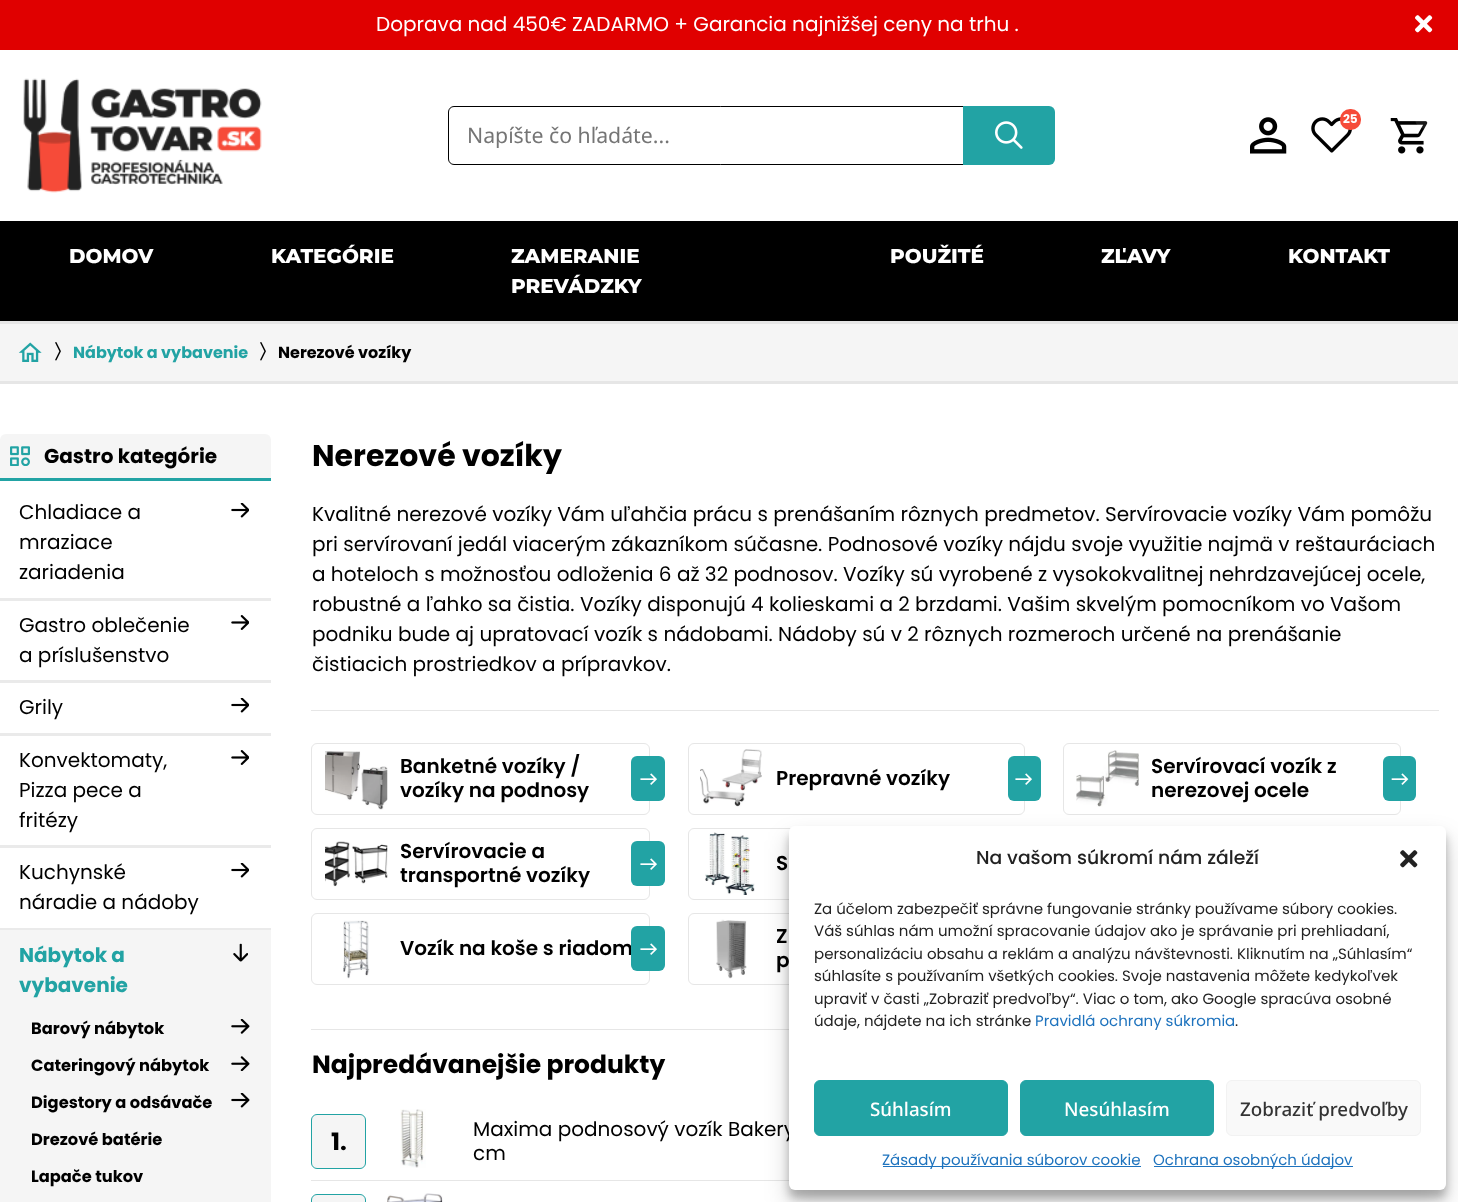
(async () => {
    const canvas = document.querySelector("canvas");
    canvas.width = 1458;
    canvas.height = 1202;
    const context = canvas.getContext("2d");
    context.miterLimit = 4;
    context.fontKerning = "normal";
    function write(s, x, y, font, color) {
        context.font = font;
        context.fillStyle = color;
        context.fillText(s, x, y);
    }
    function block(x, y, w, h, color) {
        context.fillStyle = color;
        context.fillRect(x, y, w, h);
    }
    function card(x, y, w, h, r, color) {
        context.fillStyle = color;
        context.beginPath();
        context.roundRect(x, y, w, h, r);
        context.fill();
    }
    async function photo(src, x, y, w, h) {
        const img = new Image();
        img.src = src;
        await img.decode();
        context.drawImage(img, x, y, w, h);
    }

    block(0, 0, 1458, 1202, "rgb(255, 255, 255)");
    block(0, 0, 1458, 50, "rgb(224, 0, 0)");
    write("Doprava nad 450€ ZADARMO + Garancia najnižšej ceny na trhu .", 376, 31, "20px Poppins", "rgb(255, 255, 255)");
    await photo("media/1.png", 1415, 15, 18, 18);
    await photo("media/2.png", 23, 78, 239, 115);
    await photo("media/3.png", 1250, 117, 37, 37);
    await photo("media/4.png", 1311, 117, 41, 36);
    card(1340, 109, 21, 21, 10, "rgb(246, 75, 57)");
    write("25", 1343, 123, "bold 12px Poppins", "rgb(255, 255, 255)");
    await photo("media/5.png", 1390, 118, 38, 36);
    context.fillStyle = "rgba(255, 255, 255, 0.1)";
    context.beginPath();
    context.arc(1425.5, 118.5, 10.5, 0, Math.PI * 2);
    context.fill();
    context.beginPath();
    context.roundRect(448.5, 106.5, 539, 58, [5.5, 0, 0, 5.5]);
    context.strokeStyle = "rgb(0, 0, 0)";
    context.stroke();
    write("Napíšte čo hľadáte...", 467, 143, "21.25px Noto Sans", "rgb(117, 117, 117)");
    context.fillStyle = "rgb(34, 163, 164)";
    context.beginPath();
    context.roundRect(963, 106, 92, 59, [0, 6, 6, 0]);
    context.fill();
    await photo("media/6.png", 995, 121, 28, 28);
    block(0, 221, 1458, 100, "rgb(0, 0, 0)");
    write("DOMOV", 69, 263, "800 20px Montserrat", "rgb(255, 255, 255)");
    write("KATEGÓRIE", 271, 263, "800 20px Montserrat", "rgb(255, 255, 255)");
    write("ZAMERANIE", 511, 263, "800 20px Montserrat", "rgb(255, 255, 255)");
    write("PREVÁDZKY", 511, 293, "800 20px Montserrat", "rgb(255, 255, 255)");
    write("POUŽITÉ", 890, 263, "800 20px Montserrat", "rgb(255, 255, 255)");
    write("ZĽAVY", 1101, 263, "800 20px Montserrat", "rgb(255, 255, 255)");
    write("KONTAKT", 1288, 263, "800 20px Montserrat", "rgb(255, 255, 255)");
    block(0, 324, 1458, 57, "rgb(245, 245, 245)");
    block(0, 321, 1458, 3, "rgb(230, 230, 230)");
    block(0, 381, 1458, 3, "rgb(230, 230, 230)");
    await photo("media/7.png", 18, 342, 24, 20);
    await photo("media/8.png", 55, 342, 6, 19);
    write("Nábytok a vybavenie", 73, 358, "bold 16px Poppins", "rgb(34, 163, 164)");
    await photo("media/8.png", 260, 342, 6, 19);
    write("Nerezové vozíky", 278, 358, "bold 16px Poppins", "rgb(0, 0, 0)");
    context.fillStyle = "rgb(245, 245, 245)";
    context.beginPath();
    context.roundRect(0, 434, 271, 46, [6, 6, 0, 0]);
    context.fill();
    block(0, 478, 271, 3, "rgb(34, 163, 164)");
    await photo("media/9.png", 10, 446, 20, 20);
    write("Gastro kategórie", 44, 463, "bold 20px Poppins", "rgb(0, 0, 0)");
    block(0, 598, 271, 3, "rgb(234, 234, 234)");
    write("Chladiace a", 19, 519, "20px Poppins", "rgb(0, 0, 0)");
    write("mraziace", 19, 549, "20px Poppins", "rgb(0, 0, 0)");
    write("zariadenia", 19, 579, "20px Poppins", "rgb(0, 0, 0)");
    await photo("media/10.png", 231, 503, 18, 15);
    block(0, 680, 271, 3, "rgb(234, 234, 234)");
    write("Gastro oblečenie", 19, 632, "20px Poppins", "rgb(0, 0, 0)");
    write("a príslušenstvo", 19, 662, "20px Poppins", "rgb(0, 0, 0)");
    await photo("media/11.png", 231, 615, 18, 15);
    block(0, 733, 271, 3, "rgb(234, 234, 234)");
    write("Grily", 19, 714, "20px Poppins", "rgb(0, 0, 0)");
    await photo("media/10.png", 231, 698, 18, 15);
    block(0, 845, 271, 3, "rgb(234, 234, 234)");
    write("Konvektomaty,", 19, 767, "20px Poppins", "rgb(0, 0, 0)");
    write("Pizza pece a", 19, 797, "20px Poppins", "rgb(0, 0, 0)");
    write("fritézy", 19, 827, "20px Poppins", "rgb(0, 0, 0)");
    await photo("media/11.png", 231, 750, 18, 15);
    block(0, 928, 271, 2, "rgb(234, 234, 234)");
    write("Kuchynské", 19, 879, "20px Poppins", "rgb(0, 0, 0)");
    write("náradie a nádoby", 19, 909, "20px Poppins", "rgb(0, 0, 0)");
    await photo("media/10.png", 231, 863, 18, 15);
    block(0, 930, 271, 272, "rgb(245, 245, 245)");
    write("Nábytok a", 19, 962, "bold 20px Poppins", "rgb(34, 163, 164)");
    write("vybavenie", 19, 992, "bold 20px Poppins", "rgb(34, 163, 164)");
    await photo("media/12.png", 233, 943, 15, 19);
    write("Barový nábytok", 31, 1034, "bold 16.25px Poppins", "rgb(0, 0, 0)");
    await photo("media/13.png", 231, 1019, 19, 15);
    write("Cateringový nábytok", 31, 1071, "bold 16.25px Poppins", "rgb(0, 0, 0)");
    await photo("media/14.png", 231, 1056, 19, 15);
    write("Digestory a odsávače", 31, 1108, "bold 16.25px Poppins", "rgb(0, 0, 0)");
    await photo("media/15.png", 231, 1093, 19, 15);
    write("Drezové batérie", 31, 1145, "bold 16.25px Poppins", "rgb(0, 0, 0)");
    write("Lapače tukov", 31, 1182, "bold 16.25px Poppins", "rgb(0, 0, 0)");
    write("Nerezové vozíky", 312, 466, "bold 30px Poppins", "rgb(0, 0, 0)");
    write("Kvalitné nerezové vozíky Vám uľahčia prácu s prenášaním rôznych predmetov. Servírovacie vozíky Vám pomôžu", 312, 521, "20px Poppins", "rgb(0, 0, 0)");
    write("pri servírovaní jedál viacerým zákazníkom súčasne. Podnosové vozíky nájdu svoje využitie najmä v reštauráciach", 312, 551, "20px Poppins", "rgb(0, 0, 0)");
    write("a hoteloch s možnosťou odloženia 6 až 32 podnosov. Vozíky sú vyrobené z vysokokvalitnej nehrdzavejúcej ocele,", 312, 581, "20px Poppins", "rgb(0, 0, 0)");
    write("robustné a ľahko sa čistia. Vozíky disponujú 4 kolieskami a 2 brzdami. Vašim skvelým pomocníkom vo Vašom", 312, 611, "20px Poppins", "rgb(0, 0, 0)");
    write("podniku bude aj upratovací vozík s nádobami. Nádoby sú v 2 rôznych rozmeroch určené na prenášanie", 312, 641, "20px Poppins", "rgb(0, 0, 0)");
    write("čistiacich prostriedkov a prípravkov.", 312, 671, "20px Poppins", "rgb(0, 0, 0)");
    block(311, 710, 1128, 1, "rgb(230, 230, 230)");
    block(311, 1029, 478, 1, "rgb(230, 230, 230)");
    context.beginPath();
    context.roundRect(311.5, 743.5, 338, 71, 5.5);
    context.strokeStyle = "rgb(230, 230, 230)";
    context.stroke();
    await photo("media/16.png", 325, 751, 63, 59);
    write("Banketné vozíky /", 400, 773, "600 20px Poppins", "rgb(0, 0, 0)");
    write("vozíky na podnosy", 400, 797, "600 20px Poppins", "rgb(0, 0, 0)");
    card(631, 756, 34, 45, 6, "rgb(34, 163, 164)");
    await photo("media/17.png", 640, 773, 17, 12);
    context.beginPath();
    context.roundRect(688.5, 743.5, 336, 71, 5.5);
    context.stroke();
    await photo("media/18.png", 700, 749, 62, 58);
    write("Prepravné vozíky", 776, 785, "600 20px Poppins", "rgb(0, 0, 0)");
    card(1008, 756, 33, 45, 6, "rgb(34, 163, 164)");
    await photo("media/17.png", 1015, 773, 17, 12);
    context.beginPath();
    context.roundRect(1063.5, 743.5, 337, 71, 5.5);
    context.stroke();
    await photo("media/19.png", 1076, 750, 63, 57);
    write("Servírovací vozík z", 1151, 773, "600 20px Poppins", "rgb(0, 0, 0)");
    write("nerezovej ocele", 1151, 797, "600 20px Poppins", "rgb(0, 0, 0)");
    card(1383, 756, 33, 45, 6, "rgb(34, 163, 164)");
    await photo("media/20.png", 1391, 773, 18, 12);
    context.beginPath();
    context.roundRect(311.5, 828.5, 338, 71, 5.5);
    context.stroke();
    await photo("media/21.png", 325, 841, 63, 46);
    write("Servírovacie a", 400, 858, "600 20px Poppins", "rgb(0, 0, 0)");
    write("transportné vozíky", 400, 882, "600 20px Poppins", "rgb(0, 0, 0)");
    card(631, 841, 34, 45, 6, "rgb(34, 163, 164)");
    await photo("media/17.png", 640, 858, 17, 12);
    context.beginPath();
    context.roundRect(688.5, 828.5, 336, 71, 5.5);
    context.stroke();
    await photo("media/22.png", 705, 832, 50, 63);
    write("S", 776, 870, "600 20px Poppins", "rgb(0, 0, 0)");
    context.beginPath();
    context.roundRect(311.5, 913.5, 338, 71, 5.5);
    context.stroke();
    await photo("media/23.png", 343, 920, 27, 59);
    write("Vozík na koše s riadom", 400, 955, "600 20px Poppins", "rgb(0, 0, 0)");
    card(631, 926, 34, 45, 6, "rgb(34, 163, 164)");
    await photo("media/17.png", 640, 943, 17, 12);
    context.beginPath();
    context.roundRect(688.5, 913.5, 336, 71, 5.5);
    context.stroke();
    await photo("media/24.png", 716, 919, 31, 60);
    write("Z", 776, 943, "600 20px Poppins", "rgb(0, 0, 0)");
    write("p", 776, 967, "600 20px Poppins", "rgb(0, 0, 0)");
    write("Najpredávanejšie produkty", 312, 1073, "bold 25px Poppins", "rgb(0, 0, 0)");
    block(311, 1180, 478, 1, "rgb(230, 230, 230)");
    context.fillStyle = "rgb(245, 245, 245)";
    context.beginPath();
    context.roundRect(311.5, 1114.5, 54, 54, 5.5);
    context.fill();
    context.strokeStyle = "rgb(34, 163, 164)";
    context.stroke();
    write("1.", 331, 1150, "bold 24px Poppins", "rgb(0, 0, 0)");
    await photo("media/25.png", 400, 1109, 26, 59);
    write("Maxima podnosový vozík Bakery", 473, 1136, "20px Poppins", "rgb(0, 0, 0)");
    write("cm", 473, 1160, "20px Poppins", "rgb(0, 0, 0)");
    context.fillStyle = "rgb(245, 245, 245)";
    context.beginPath();
    context.roundRect(311.5, 1194.5, 54, 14, 5.5);
    context.fill();
    context.stroke();
    await photo("media/26.png", 387, 1193, 56, 9);
    context.fillStyle = "rgba(0, 0, 0, 0.23)";
    context.filter = "blur(4px)";
    context.beginPath();
    context.roundRect(789, 834, 657, 364, 6);
    context.fill();
    context.filter = "none";
    context.fillStyle = "rgba(0, 0, 0, 0.19)";
    context.filter = "blur(12.5px)";
    context.beginPath();
    context.roundRect(789, 839, 657, 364, 6);
    context.fill();
    context.filter = "none";
    card(789, 826, 657, 364, 6, "rgb(255, 255, 255)");
    write("Na vašom súkromí nám záleží", 976, 864, "500 18.75px Poppins", "rgb(34, 34, 34)");
    await photo("media/27.png", 1400, 850, 18, 18);
    write("Za účelom zabezpečiť správne fungovanie stránky používame súbory cookies.", 814, 914, "15px Poppins", "rgb(34, 34, 34)");
    write("Váš súhlas nám umožní spracovanie údajov ako je správanie pri prehliadaní,", 814, 936, "15px Poppins", "rgb(34, 34, 34)");
    write("personalizáciu obsahu a reklám a analýzu návštevnosti. Kliknutím na „Súhlasím“", 814, 959, "15px Poppins", "rgb(34, 34, 34)");
    write("súhlasíte s používaním všetkých cookies. Svoje nastavenia môžete kedykoľvek", 814, 981, "15px Poppins", "rgb(34, 34, 34)");
    write("upraviť v časti „Zobraziť predvoľby“. Viac o tom, ako Google spracúva osobné", 814, 1004, "15px Poppins", "rgb(34, 34, 34)");
    write("údaje, nájdete na ich stránke", 814, 1026, "15px Poppins", "rgb(34, 34, 34)");
    write("Pravidlá ochrany súkromia", 1035, 1026, "15px Poppins", "rgb(30, 115, 190)");
    write(".", 1235, 1026, "15px Poppins", "rgb(34, 34, 34)");
    context.fillStyle = "rgb(34, 163, 164)";
    context.beginPath();
    context.roundRect(814.5, 1080.5, 193, 55, 5.5);
    context.fill();
    context.stroke();
    write("Súhlasím", 870, 1116, "500 18.75px Noto Sans", "rgb(255, 255, 255)");
    context.fillStyle = "rgb(34, 163, 164)";
    context.beginPath();
    context.roundRect(1020.5, 1080.5, 193, 55, 5.5);
    context.fill();
    context.stroke();
    write("Nesúhlasím", 1064, 1116, "500 18.75px Noto Sans", "rgb(255, 255, 255)");
    context.fillStyle = "rgb(249, 249, 249)";
    context.beginPath();
    context.roundRect(1226.5, 1080.5, 194, 55, 5.5);
    context.fill();
    context.strokeStyle = "rgb(242, 242, 242)";
    context.stroke();
    write("Zobraziť predvoľby", 1240, 1116, "500 18.75px Noto Sans", "rgb(51, 51, 51)");
    block(883, 1166, 258, 1, "rgb(30, 115, 190)");
    write("Zásady používania súborov cookie", 882, 1165, "15px Poppins", "rgb(30, 115, 190)");
    block(1154, 1166, 199, 1, "rgb(30, 115, 190)");
    write("Ochrana osobných údajov", 1153, 1165, "15px Poppins", "rgb(30, 115, 190)");
})();
